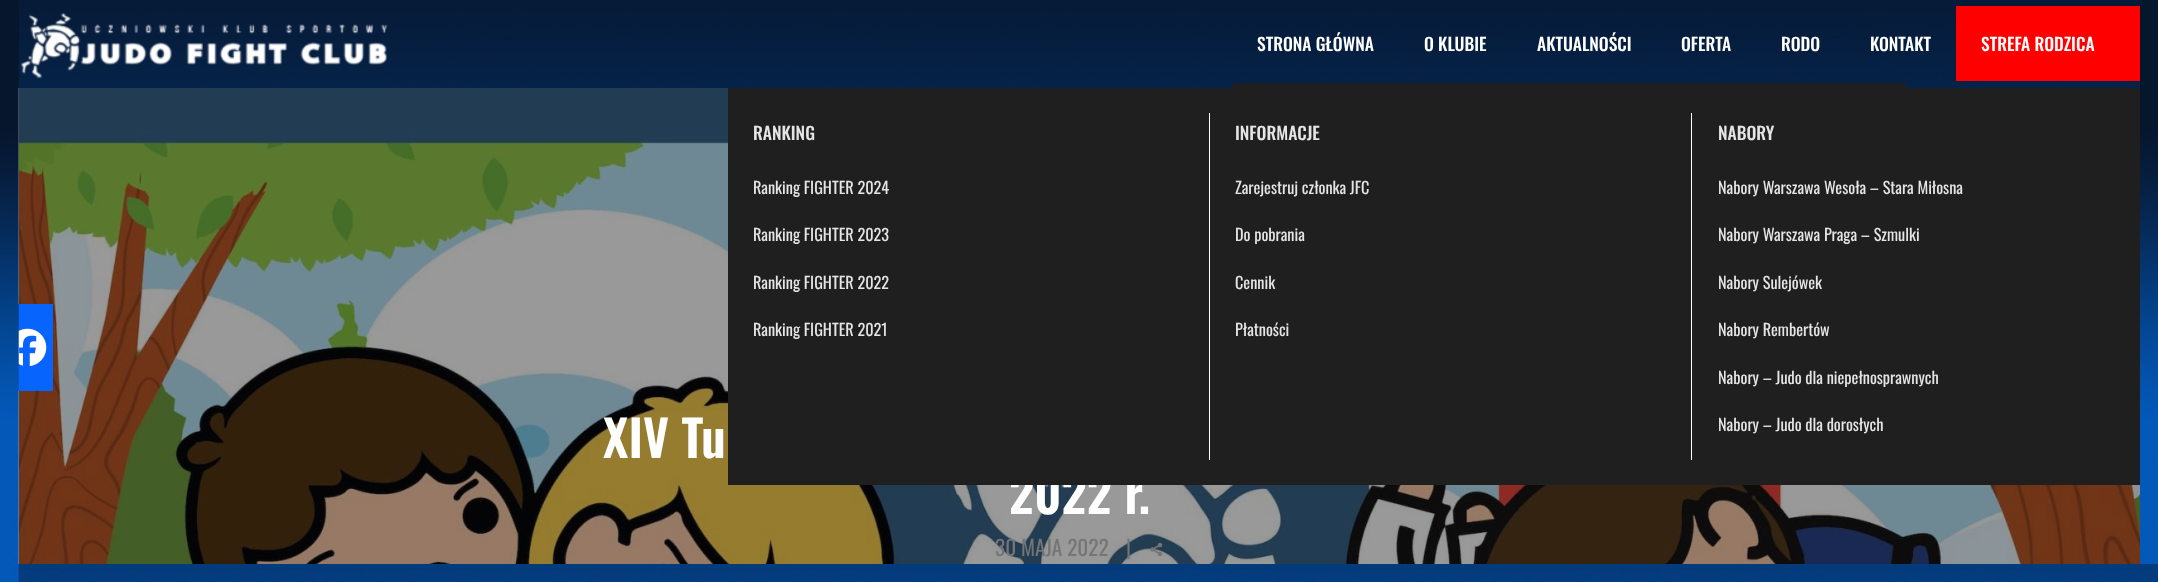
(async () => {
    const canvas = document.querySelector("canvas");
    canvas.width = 2158;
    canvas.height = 582;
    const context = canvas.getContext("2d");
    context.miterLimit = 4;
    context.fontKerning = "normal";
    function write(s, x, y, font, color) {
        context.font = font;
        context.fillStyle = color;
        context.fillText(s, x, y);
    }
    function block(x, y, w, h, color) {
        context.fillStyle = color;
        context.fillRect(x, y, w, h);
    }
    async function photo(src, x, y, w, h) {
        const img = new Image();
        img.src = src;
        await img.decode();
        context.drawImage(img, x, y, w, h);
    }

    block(0, 0, 2158, 582, "rgb(255, 255, 255)");
    await photo("media/3.png", 18, 564, 2140, 18);
    await photo("media/7.png", 18, 88, 2122, 476);
    block(18, 304, 35, 87, "rgb(7, 101, 254)");
    await photo("media/4.png", 18, 328, 29, 38);
    await photo("media/5.png", 18, 0, 2122, 88);
    await photo("media/1.png", 0, 0, 19, 582);
    await photo("media/2.png", 2140, 0, 18, 564);
    await photo("media/6.png", 20, 13, 368, 66);
    write("STRONA GŁÓWNA", 1257, 51, "500 17.5px Oswald", "rgb(255, 255, 255)");
    block(1233, 83, 673, 5, "rgb(31, 31, 31)");
    write("AKTUALNOŚCI", 1537, 51, "500 17.5px Oswald", "rgb(255, 255, 255)");
    block(1956, 6, 184, 75, "rgb(255, 0, 0)");
    write("STREFA RODZICA", 1981, 51, "500 17.5px Oswald", "rgb(255, 255, 255)");
    write("2022 r.", 1009, 514, "600 50px Oswald", "rgb(255, 255, 255)");
    block(728, 88, 1412, 397, "rgb(31, 31, 31)");
    block(1209, 113, 1, 347, "rgb(255, 255, 255)");
    write("RANKING", 753, 140, "500 17.5px Oswald", "rgb(229, 229, 229)");
    write("Ranking FIGHTER 2024", 753, 194, "16.25px Oswald", "rgb(229, 229, 229)");
    write("Ranking FIGHTER 2023", 753, 241, "16.25px Oswald", "rgb(229, 229, 229)");
    write("Ranking FIGHTER 2022", 753, 289, "16.25px Oswald", "rgb(229, 229, 229)");
    write("Ranking FIGHTER 2021", 753, 336, "16.25px Oswald", "rgb(229, 229, 229)");
    block(1691, 113, 1, 347, "rgb(255, 255, 255)");
    write("INFORMACJE", 1235, 140, "500 17.5px Oswald", "rgb(229, 229, 229)");
    write("Zarejestruj członka JFC", 1235, 194, "16.25px Oswald", "rgb(229, 229, 229)");
    write("Do pobrania", 1235, 241, "16.25px Oswald", "rgb(229, 229, 229)");
    write("Cennik", 1235, 289, "16.25px Oswald", "rgb(229, 229, 229)");
    write("Płatności", 1235, 336, "16.25px Oswald", "rgb(229, 229, 229)");
    write("NABORY", 1718, 140, "500 17.5px Oswald", "rgb(229, 229, 229)");
    write("Nabory Warszawa Wesoła – Stara Miłosna", 1718, 194, "16.25px Oswald", "rgb(229, 229, 229)");
    write("Nabory Warszawa Praga – Szmulki", 1718, 241, "16.25px Oswald", "rgb(229, 229, 229)");
    write("Nabory Sulejówek", 1718, 289, "16.25px Oswald", "rgb(229, 229, 229)");
    write("Nabory Rembertów", 1718, 336, "16.25px Oswald", "rgb(229, 229, 229)");
    write("Nabory – Judo dla niepełnosprawnych", 1718, 384, "16.25px Oswald", "rgb(229, 229, 229)");
    write("Nabory – Judo dla dorosłych", 1718, 431, "16.25px Oswald", "rgb(229, 229, 229)");
    write("O KLUBIE", 1424, 51, "500 17.5px Oswald", "rgb(255, 255, 255)");
    write("OFERTA", 1681, 51, "500 17.5px Oswald", "rgb(255, 255, 255)");
    write("RODO", 1781, 51, "500 17.5px Oswald", "rgb(255, 255, 255)");
    write("KONTAKT", 1870, 51, "500 17.5px Oswald", "rgb(255, 255, 255)");
    write("XIV Tu", 603, 458, "600 50px Oswald", "rgb(255, 255, 255)");
    write("30 MAJA 2022", 995, 556, "21.25px Oswald", "rgb(117, 117, 117)");
    write("|", 1126, 556, "21.25px Oswald", "rgb(117, 117, 117)");
    await photo("media/8.png", 1150, 542, 13, 15);
})();
